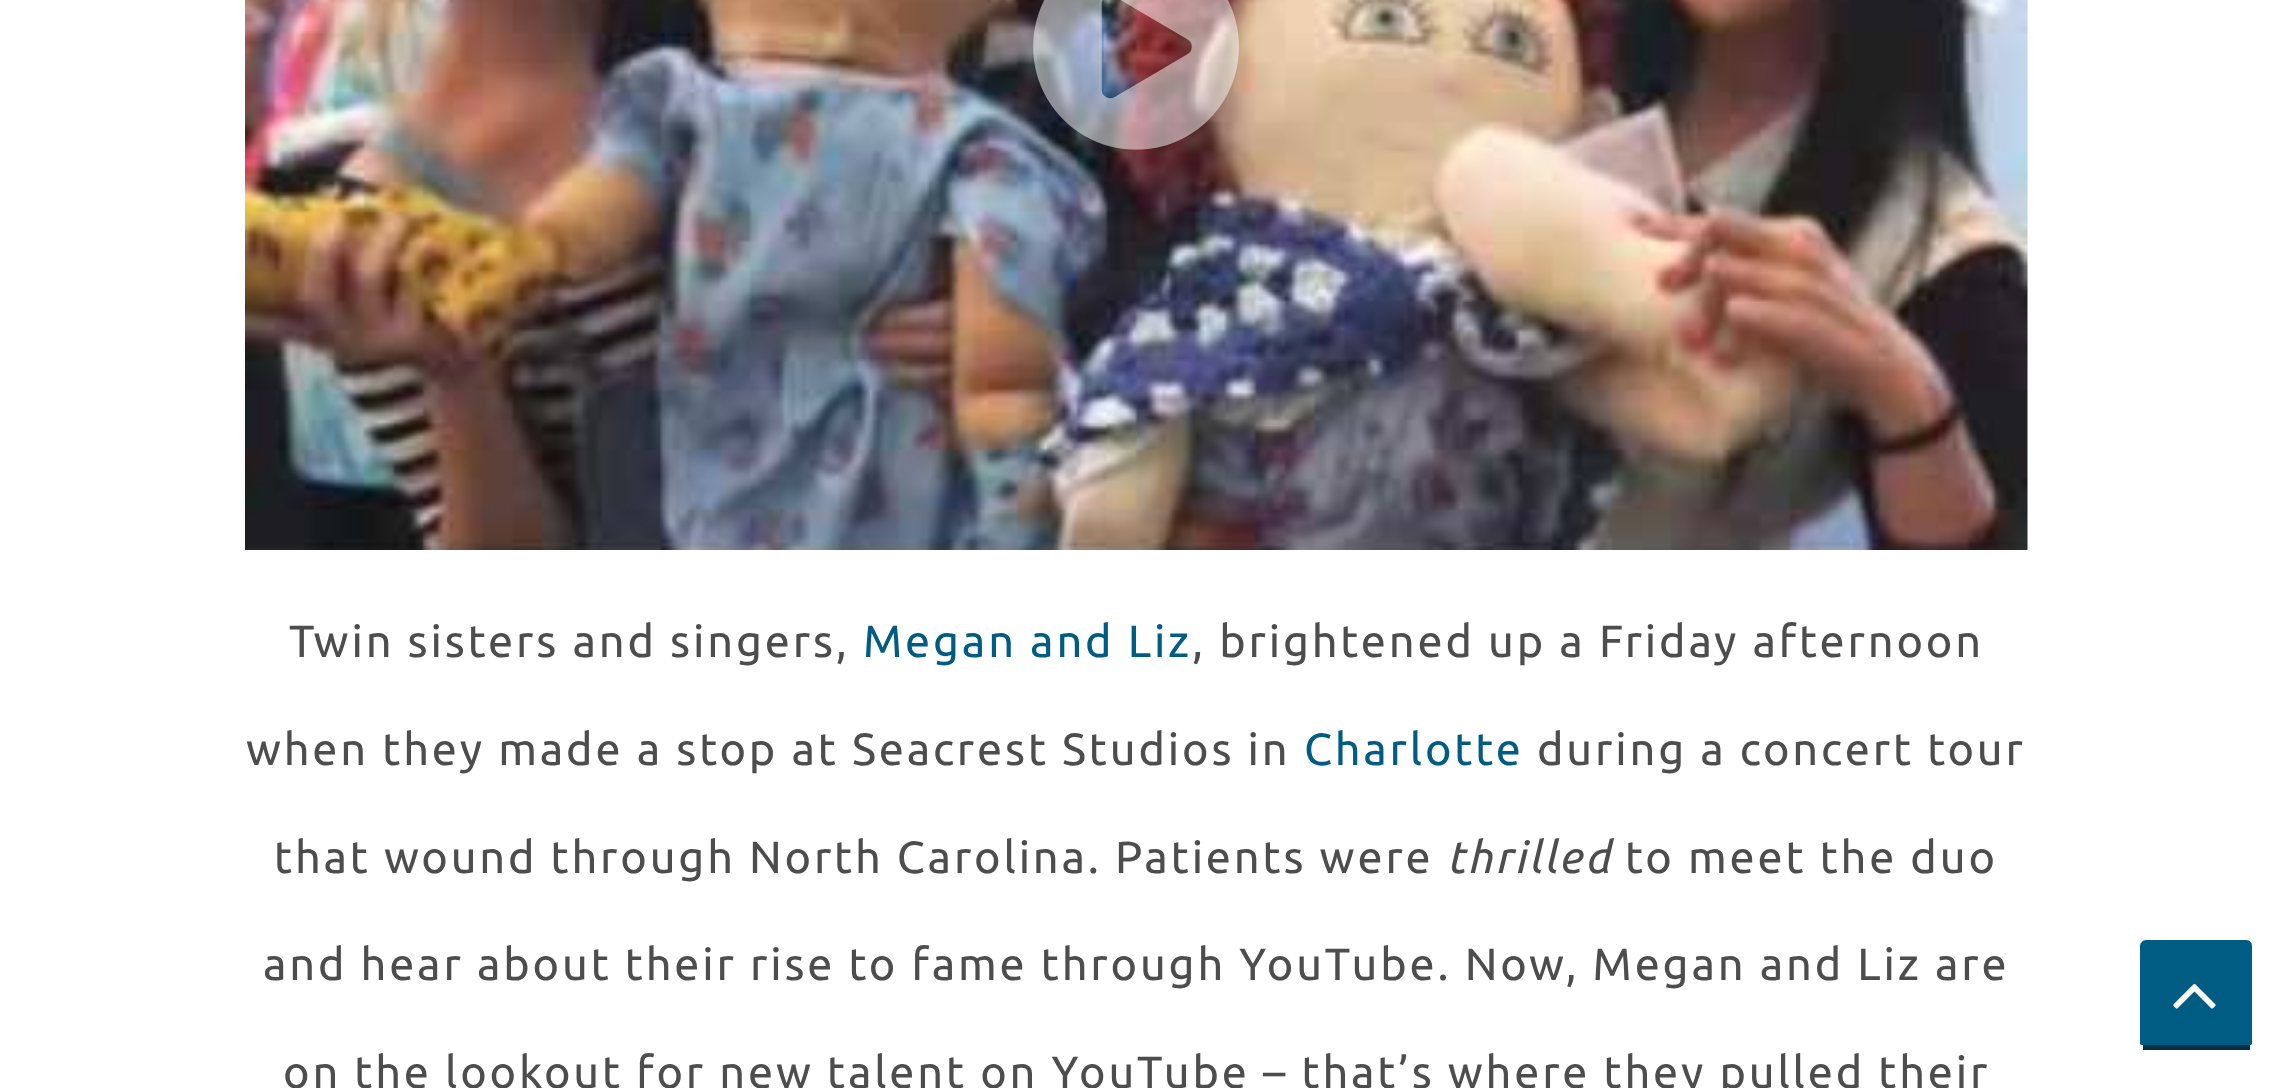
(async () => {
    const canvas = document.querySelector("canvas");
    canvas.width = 2291;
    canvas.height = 1088;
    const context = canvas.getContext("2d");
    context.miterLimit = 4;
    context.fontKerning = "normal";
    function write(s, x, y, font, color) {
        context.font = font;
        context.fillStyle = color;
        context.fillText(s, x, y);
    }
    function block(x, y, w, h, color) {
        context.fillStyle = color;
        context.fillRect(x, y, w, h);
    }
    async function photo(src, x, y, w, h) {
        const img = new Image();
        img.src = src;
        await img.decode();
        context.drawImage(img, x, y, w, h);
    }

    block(0, 0, 2291, 1088, "rgb(255, 255, 255)");
    await photo("media/1.png", 245, 0, 1783, 550);
    await photo("media/2.png", 1033, 0, 206, 150);
    context.letterSpacing = "2.85px";
    write("Twin sisters and singers,", 289, 657, "45px Ubuntu", "rgb(77, 77, 77)");
    write("Megan and Liz", 863, 657, "45px Ubuntu", "rgb(0, 92, 131)");
    write(", brightened up a Friday afternoon", 1192, 657, "45px Ubuntu", "rgb(77, 77, 77)");
    write("when they made a stop at Seacrest Studios in", 246, 765, "45px Ubuntu", "rgb(77, 77, 77)");
    write("Charlotte", 1304, 765, "45px Ubuntu", "rgb(0, 92, 131)");
    write("during a concert tour", 1537, 765, "45px Ubuntu", "rgb(77, 77, 77)");
    write("that wound through North Carolina. Patients were", 274, 873, "45px Ubuntu", "rgb(77, 77, 77)");
    write("thrilled", 1447, 873, "italic 45px Ubuntu", "rgb(77, 77, 77)");
    write("to meet the duo", 1625, 873, "45px Ubuntu", "rgb(77, 77, 77)");
    write("and hear about their rise to fame through YouTube. Now, Megan and Liz are", 263, 980, "45px Ubuntu", "rgb(77, 77, 77)");
    write("on the lookout for new talent on YouTube – that’s where they pulled their", 283, 1088, "45px Ubuntu", "rgb(77, 77, 77)");
    context.fillStyle = "rgb(0, 92, 131)";
    context.beginPath();
    context.moveTo(2146, 940);
    context.lineTo(2246, 940);
    context.bezierCurveTo(2250, 940, 2252, 943, 2252, 946);
    context.lineTo(2252, 1044);
    context.bezierCurveTo(2252, 1045, 2250, 1045, 2246, 1045);
    context.lineTo(2146, 1045);
    context.bezierCurveTo(2143, 1045, 2140, 1045, 2140, 1044);
    context.lineTo(2140, 946);
    context.bezierCurveTo(2140, 943, 2143, 940, 2146, 940);
    context.closePath();
    context.fill();
    block(2143, 1045, 107, 5, "rgb(0, 49, 70)");
    await photo("media/3.png", 2173, 983, 43, 26);
})();
